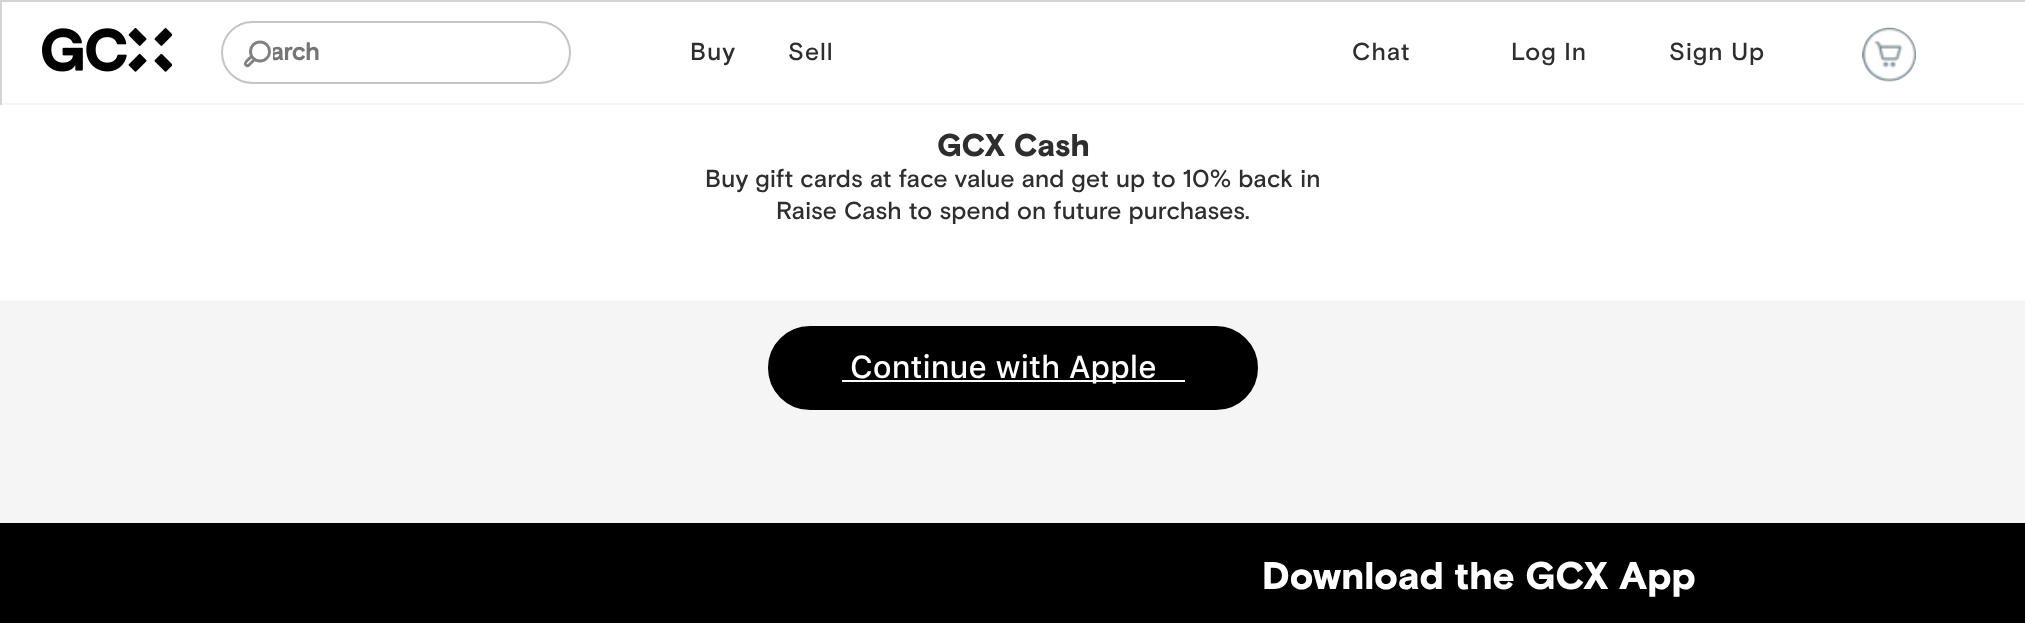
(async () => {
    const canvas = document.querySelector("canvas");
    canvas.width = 2025;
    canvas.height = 623;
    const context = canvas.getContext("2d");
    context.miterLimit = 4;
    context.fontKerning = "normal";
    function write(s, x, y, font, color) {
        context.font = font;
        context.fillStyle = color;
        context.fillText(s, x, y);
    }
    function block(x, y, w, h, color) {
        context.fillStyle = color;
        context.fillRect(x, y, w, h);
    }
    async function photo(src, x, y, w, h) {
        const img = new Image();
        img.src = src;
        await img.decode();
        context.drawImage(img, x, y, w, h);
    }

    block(0, 0, 2025, 623, "rgb(245, 245, 245)");
    block(2, 2, 2023, 101, "rgb(255, 255, 255)");
    block(0, 0, 2025, 2, "rgb(212, 212, 212)");
    block(0, 0, 2, 105, "rgb(212, 212, 212)");
    await photo("media/1.png", 42, 28, 130, 44);
    context.beginPath();
    context.roundRect(222, 22, 348, 61, 30.5);
    context.strokeStyle = "rgb(197, 197, 197)";
    context.lineWidth = 2;
    context.stroke();
    write("arch", 270, 60, "bold 24.5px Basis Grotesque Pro", "rgb(117, 117, 117)");
    context.fillStyle = "rgb(255, 255, 255)";
    context.beginPath();
    context.roundRect(242, 37, 31, 31, [0, 5, 5, 0]);
    context.fill();
    context.beginPath();
    context.arc(260, 51.5, 9.5, 0, Math.PI * 2);
    context.strokeStyle = "rgb(130, 130, 130)";
    context.lineWidth = 2.9;
    context.stroke();
    context.beginPath();
    context.moveTo(254, 60);
    context.lineTo(248.5, 65.5);
    context.bezierCurveTo(247.5, 66, 246, 65.5, 245.5, 64.5);
    context.bezierCurveTo(244, 62.5, 249.5, 58.5, 251, 57);
    context.lineCap = "round";
    context.lineJoin = "round";
    context.stroke();
    context.letterSpacing = "1px";
    write("Buy", 690, 60, "500 24.5px Basis Grotesque Pro", "rgb(46, 46, 46)");
    write("Sell", 788, 60, "500 24.5px Basis Grotesque Pro", "rgb(46, 46, 46)");
    write("Chat", 1352, 60, "500 24.5px Basis Grotesque Pro", "rgb(46, 46, 46)");
    write("Log In", 1511, 60, "500 24.5px Basis Grotesque Pro", "rgb(46, 46, 46)");
    write("Sign Up", 1669, 60, "500 24.5px Basis Grotesque Pro", "rgb(46, 46, 46)");
    await photo("media/2.png", 1862, 27, 54, 55);
    block(0, 105, 2025, 196, "rgb(255, 255, 255)");
    context.letterSpacing = "0px";
    write("GCX Cash", 937, 156, "900 31.5px Basis Grotesque Pro", "rgb(46, 46, 46)");
    context.letterSpacing = "0.15px";
    write("Buy gift cards at face value and get up to 10% back in", 705, 187, "500 24.5px Basis Grotesque Pro", "rgb(46, 46, 46)");
    write("Raise Cash to spend on future purchases.", 776, 219, "500 24.5px Basis Grotesque Pro", "rgb(46, 46, 46)");
    context.fillStyle = "rgb(0, 0, 0)";
    context.beginPath();
    context.roundRect(769, 327, 488, 82, 41);
    context.fill();
    context.strokeStyle = "rgb(0, 0, 0)";
    context.lineWidth = 2;
    context.lineJoin = "miter";
    context.stroke();
    block(842, 380, 343, 2, "rgb(255, 255, 255)");
    context.letterSpacing = "0px";
    write(" Continue with Apple", 842, 378, "500 31.5px SF Pro Text", "rgb(255, 255, 255)");
    block(0, 523, 2025, 100, "rgb(0, 0, 0)");
    write("Download the GCX App", 1262, 589, "900 38.5px Basis Grotesque Pro", "rgb(255, 255, 255)");
})();
